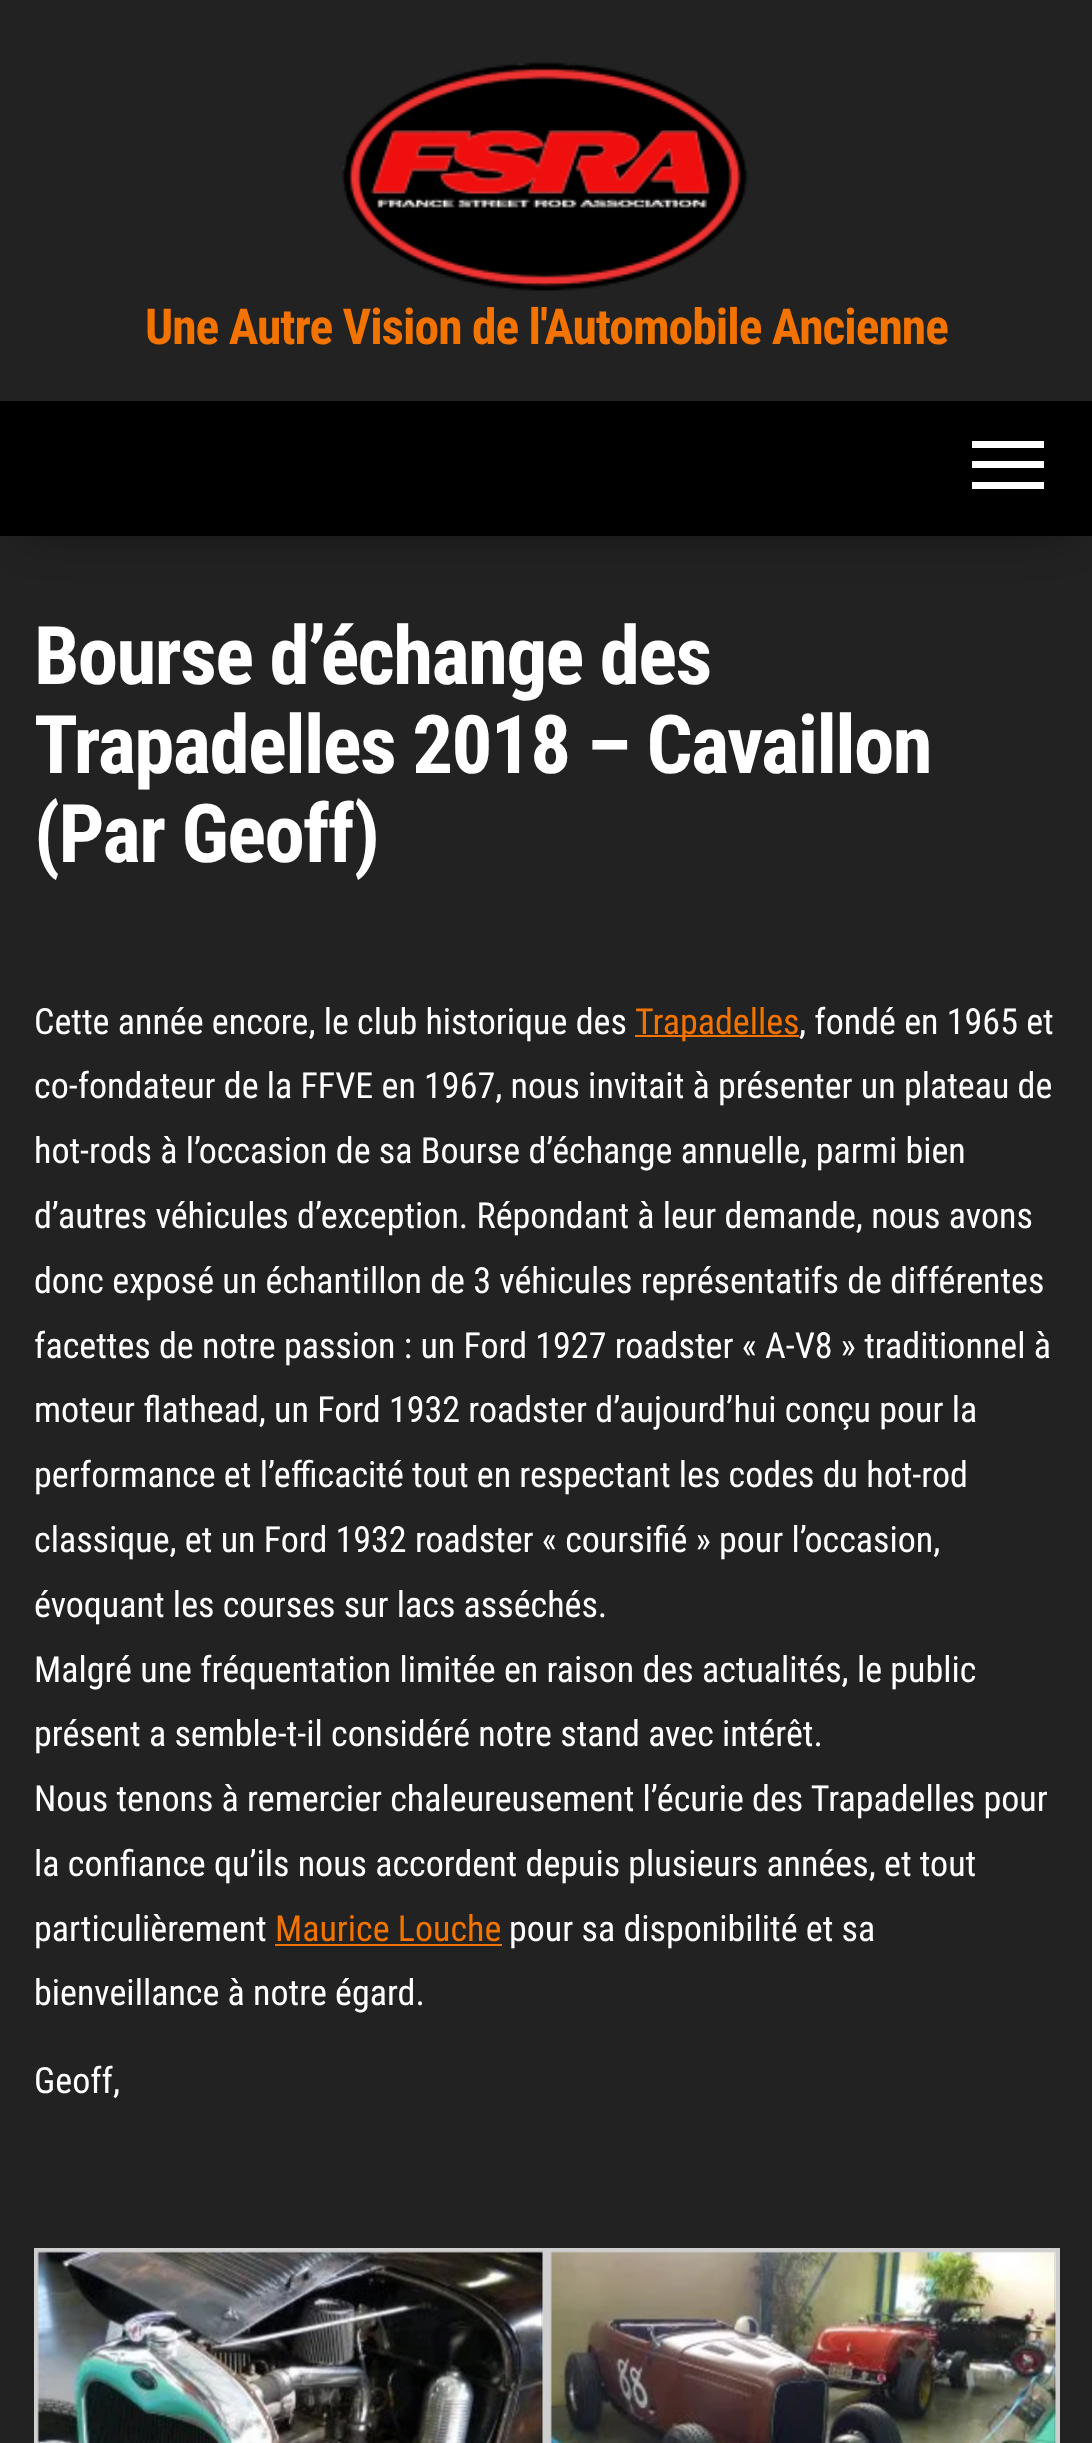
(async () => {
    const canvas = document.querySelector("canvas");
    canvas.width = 1092;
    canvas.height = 2443;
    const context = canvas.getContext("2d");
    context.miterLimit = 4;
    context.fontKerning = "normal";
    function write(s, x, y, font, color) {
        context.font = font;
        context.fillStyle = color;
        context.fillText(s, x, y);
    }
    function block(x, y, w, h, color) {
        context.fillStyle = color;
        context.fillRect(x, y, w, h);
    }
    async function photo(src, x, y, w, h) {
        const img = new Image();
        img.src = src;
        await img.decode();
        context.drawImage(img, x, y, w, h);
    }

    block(0, 0, 1092, 2443, "rgb(34, 34, 34)");
    await photo("media/1.png", 342, 62, 406, 229);
    context.letterSpacing = "-1px";
    write("Une Autre Vision de l'Automobile Ancienne", 145, 344, "bold 49.5px Roboto Condensed", "rgb(242, 115, 0)");
    context.fillStyle = "rgba(0, 0, 0, 0.42)";
    context.filter = "blur(22.5px)";
    context.beginPath();
    context.rect(27, 450, 1040, 81);
    context.fill();
    context.filter = "none";
    block(0, 401, 1092, 135, "rgb(0, 0, 0)");
    block(972, 441, 72, 7, "rgb(255, 255, 255)");
    block(972, 461, 72, 7, "rgb(255, 255, 255)");
    block(972, 482, 72, 7, "rgb(255, 255, 255)");
    context.letterSpacing = "-1.6px";
    write("Bourse d’échange des", 34, 684, "bold 81px Roboto Condensed", "rgb(255, 255, 255)");
    write("Trapadelles 2018 – Cavaillon", 34, 773, "bold 81px Roboto Condensed", "rgb(255, 255, 255)");
    write("(Par Geoff)", 34, 862, "bold 81px Roboto Condensed", "rgb(255, 255, 255)");
    context.letterSpacing = "0px";
    write("Cette année encore, le club historique des", 34, 1034, "36px Roboto Condensed", "rgb(255, 255, 255)");
    block(635, 1035, 164, 2, "rgb(242, 115, 0)");
    write("Trapadelles", 635, 1034, "36px Roboto Condensed", "rgb(242, 115, 0)");
    write(", fondé en 1965 et", 799, 1034, "36px Roboto Condensed", "rgb(255, 255, 255)");
    write("co-fondateur de la FFVE en 1967, nous invitait à présenter un plateau de", 34, 1098, "36px Roboto Condensed", "rgb(255, 255, 255)");
    write("hot-rods à l’occasion de sa Bourse d’échange annuelle, parmi bien", 34, 1163, "36px Roboto Condensed", "rgb(255, 255, 255)");
    write("d’autres véhicules d’exception. Répondant à leur demande, nous avons", 34, 1228, "36px Roboto Condensed", "rgb(255, 255, 255)");
    write("donc exposé un échantillon de 3 véhicules représentatifs de différentes", 34, 1293, "36px Roboto Condensed", "rgb(255, 255, 255)");
    write("facettes de notre passion : un Ford 1927 roadster « A-V8 » traditionnel à", 34, 1358, "36px Roboto Condensed", "rgb(255, 255, 255)");
    write("moteur flathead, un Ford 1932 roadster d’aujourd’hui conçu pour la", 34, 1422, "36px Roboto Condensed", "rgb(255, 255, 255)");
    write("performance et l’efficacité tout en respectant les codes du hot-rod", 34, 1487, "36px Roboto Condensed", "rgb(255, 255, 255)");
    write("classique, et un Ford 1932 roadster « coursifié » pour l’occasion,", 34, 1552, "36px Roboto Condensed", "rgb(255, 255, 255)");
    write("évoquant les courses sur lacs asséchés.", 34, 1617, "36px Roboto Condensed", "rgb(255, 255, 255)");
    write("Malgré une fréquentation limitée en raison des actualités, le public", 34, 1682, "36px Roboto Condensed", "rgb(255, 255, 255)");
    write("présent a semble-t-il considéré notre stand avec intérêt.", 34, 1746, "36px Roboto Condensed", "rgb(255, 255, 255)");
    write("Nous tenons à remercier chaleureusement l’écurie des Trapadelles pour", 34, 1811, "36px Roboto Condensed", "rgb(255, 255, 255)");
    write("la confiance qu’ils nous accordent depuis plusieurs années, et tout", 34, 1876, "36px Roboto Condensed", "rgb(255, 255, 255)");
    write("particulièrement", 34, 1941, "36px Roboto Condensed", "rgb(255, 255, 255)");
    write("Maurice Louche", 275, 1941, "36px Roboto Condensed", "rgb(242, 115, 0)");
    block(275, 1944, 227, 2, "rgb(242, 115, 0)");
    write("pour sa disponibilité et sa", 509, 1941, "36px Roboto Condensed", "rgb(255, 255, 255)");
    write("bienveillance à notre égard.", 34, 2005, "36px Roboto Condensed", "rgb(255, 255, 255)");
    write("Geoff,", 34, 2093, "36px Roboto Condensed", "rgb(255, 255, 255)");
    context.strokeStyle = "rgb(207, 207, 207)";
    context.lineWidth = 5;
    context.strokeRect(36.5, 2250.5, 508, 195);
    await photo("media/2.png", 37, 2251, 506, 192);
    context.strokeRect(549.5, 2250.5, 508, 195);
    await photo("media/3.png", 550, 2251, 506, 192);
})();
